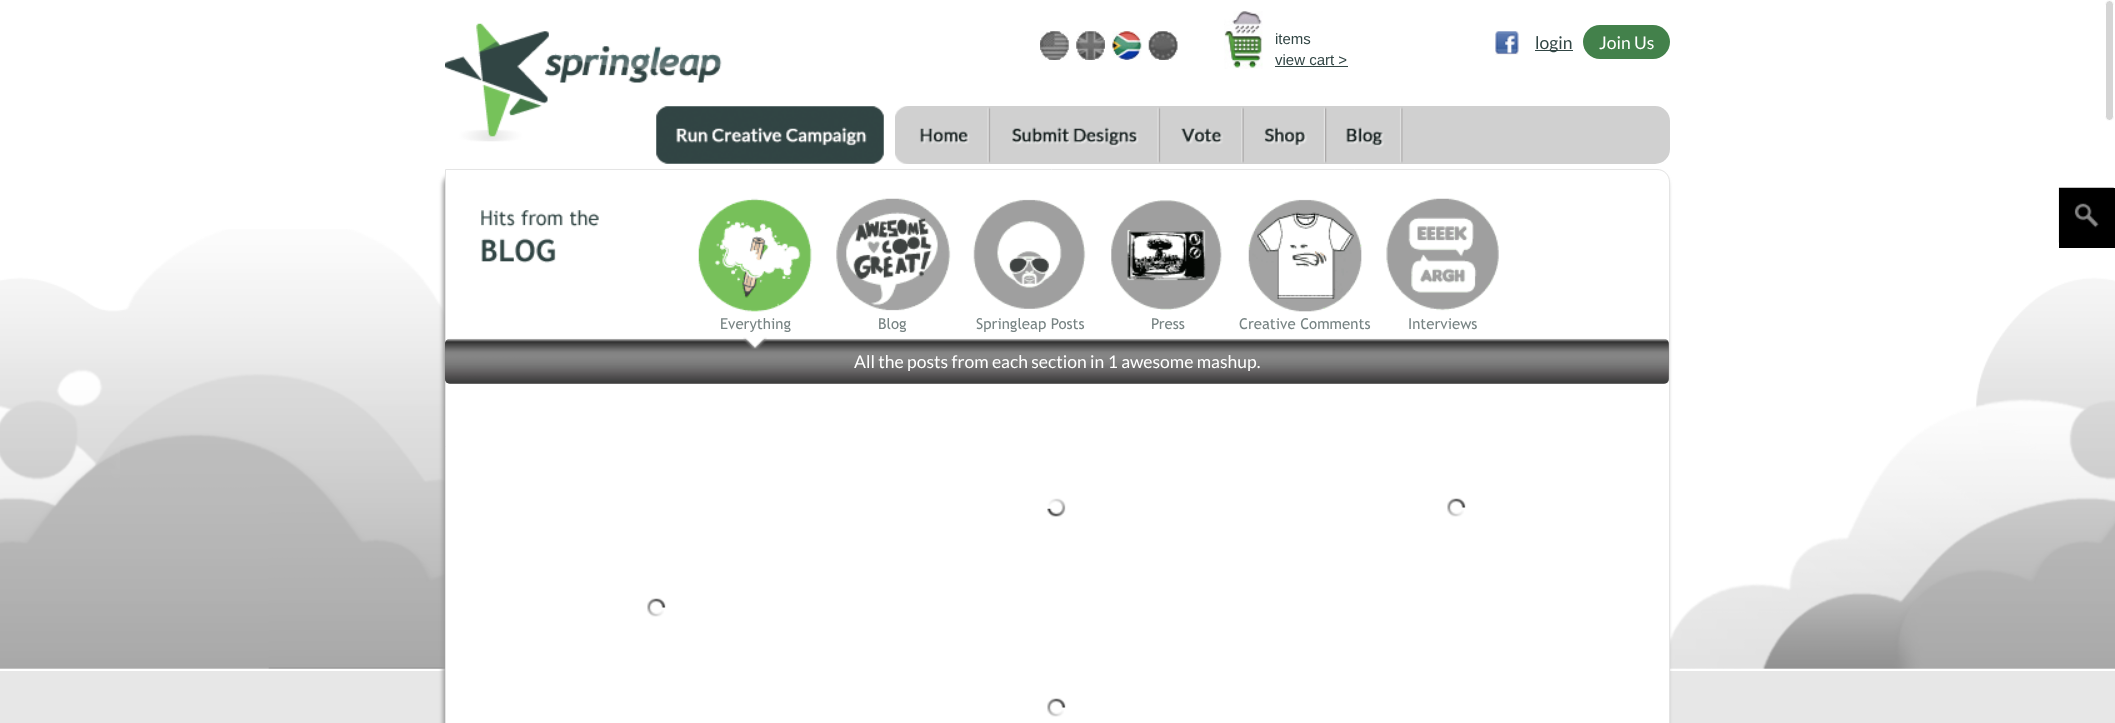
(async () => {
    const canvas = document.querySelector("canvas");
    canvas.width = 2115;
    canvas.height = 723;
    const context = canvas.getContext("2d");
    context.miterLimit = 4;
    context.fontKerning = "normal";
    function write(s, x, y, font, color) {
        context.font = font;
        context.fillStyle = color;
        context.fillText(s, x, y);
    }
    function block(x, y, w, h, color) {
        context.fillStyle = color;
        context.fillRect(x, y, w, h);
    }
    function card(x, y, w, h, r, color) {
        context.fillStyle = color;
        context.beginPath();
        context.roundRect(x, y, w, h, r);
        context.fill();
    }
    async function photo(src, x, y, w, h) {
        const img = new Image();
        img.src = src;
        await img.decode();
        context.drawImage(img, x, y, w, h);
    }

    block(0, 0, 2115, 723, "rgb(255, 255, 255)");
    await photo("media/1.png", 445, 23, 277, 119);
    await photo("media/2.png", 1040, 31, 29, 29);
    await photo("media/3.png", 1076, 31, 29, 29);
    await photo("media/4.png", 1112, 31, 30, 29);
    await photo("media/5.png", 1148, 31, 30, 29);
    await photo("media/6.png", 1224, 11, 39, 58);
    write("items", 1275, 44, "15px Liberation Sans", "rgb(49, 69, 68)");
    write("view cart >", 1275, 65, "15px Liberation Sans", "rgb(49, 69, 68)");
    block(1275, 66, 73, 1, "rgb(49, 69, 68)");
    await photo("media/7.png", 1495, 31, 24, 24);
    block(1535, 50, 38, 1, "rgb(49, 69, 68)");
    write("login", 1535, 49, "17.5px Lato", "rgb(49, 69, 68)");
    card(1583, 25, 87, 34, 17, "rgb(67, 129, 75)");
    write("Join Us", 1599, 49, "17.5px Lato", "rgb(255, 255, 255)");
    await photo("media/8.png", 656, 106, 228, 58);
    card(895, 106, 775, 58, 15, "rgb(208, 208, 208)");
    await photo("media/9.png", 895, 106, 94, 58);
    await photo("media/10.png", 988, 107, 171, 57);
    await photo("media/11.png", 1158, 107, 85, 57);
    await photo("media/12.png", 1242, 107, 83, 57);
    await photo("media/13.png", 1325, 107, 78, 57);
    context.fillStyle = "rgb(213, 213, 213)";
    context.beginPath();
    context.roundRect(2105.5, 0.5, 8, 120, 4);
    context.fill();
    context.strokeStyle = "rgb(255, 255, 255)";
    context.stroke();
    await photo("media/15.png", 0, 229, 2115, 440);
    block(2059, 188, 56, 60, "rgb(0, 0, 0)");
    await photo("media/14.png", 2058, 187, 56, 56);
    block(0, 671, 2115, 52, "rgb(231, 231, 231)");
    context.fillStyle = "rgb(153, 153, 153)";
    context.filter = "blur(2px)";
    context.beginPath();
    context.roundRect(443, 173, 1225, 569, 13);
    context.fill();
    context.filter = "none";
    context.fillStyle = "rgb(255, 255, 255)";
    context.beginPath();
    context.moveTo(445.5, 169.5);
    context.lineTo(1657, 169.5);
    context.bezierCurveTo(1664, 169.5, 1669.5, 175, 1669.5, 182);
    context.lineTo(1669.5, 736.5);
    context.lineTo(445.5, 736.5);
    context.closePath();
    context.fill();
    context.strokeStyle = "rgb(228, 228, 228)";
    context.stroke();
    await photo("media/16.png", 481, 210, 118, 53);
    card(445, 339, 1224, 45, 5, "rgb(131, 130, 130)");
    await photo("media/24.png", 445, 338, 1224, 46);
    await photo("media/17.png", 743, 337, 24, 12);
    await photo("media/18.png", 698, 198, 114, 114);
    write("Everything", 720, 329, "15px Trebuchet MS", "rgb(120, 132, 132)");
    await photo("media/19.png", 836, 198, 115, 113);
    write("Blog", 878, 329, "15px Trebuchet MS", "rgb(120, 132, 132)");
    await photo("media/20.png", 973, 199, 113, 110);
    write("Springleap Posts", 976, 329, "15px Trebuchet MS", "rgb(120, 132, 132)");
    await photo("media/21.png", 1111, 200, 111, 110);
    write("Press", 1151, 329, "15px Trebuchet MS", "rgb(120, 132, 132)");
    await photo("media/22.png", 1248, 199, 114, 113);
    write("Creative Comments", 1239, 329, "15px Trebuchet MS", "rgb(120, 132, 132)");
    await photo("media/23.png", 1386, 198, 113, 113);
    write("Interviews", 1408, 329, "15px Trebuchet MS", "rgb(120, 132, 132)");
    write("All the posts from each section in 1 awesome mashup.", 854, 368, "17.5px Lato", "rgb(255, 255, 255)");
    await photo("media/25.png", 1047, 498, 19, 19);
    await photo("media/26.png", 1447, 498, 19, 19);
    await photo("media/26.png", 647, 598, 19, 19);
    await photo("media/26.png", 1047, 698, 19, 19);
})();
